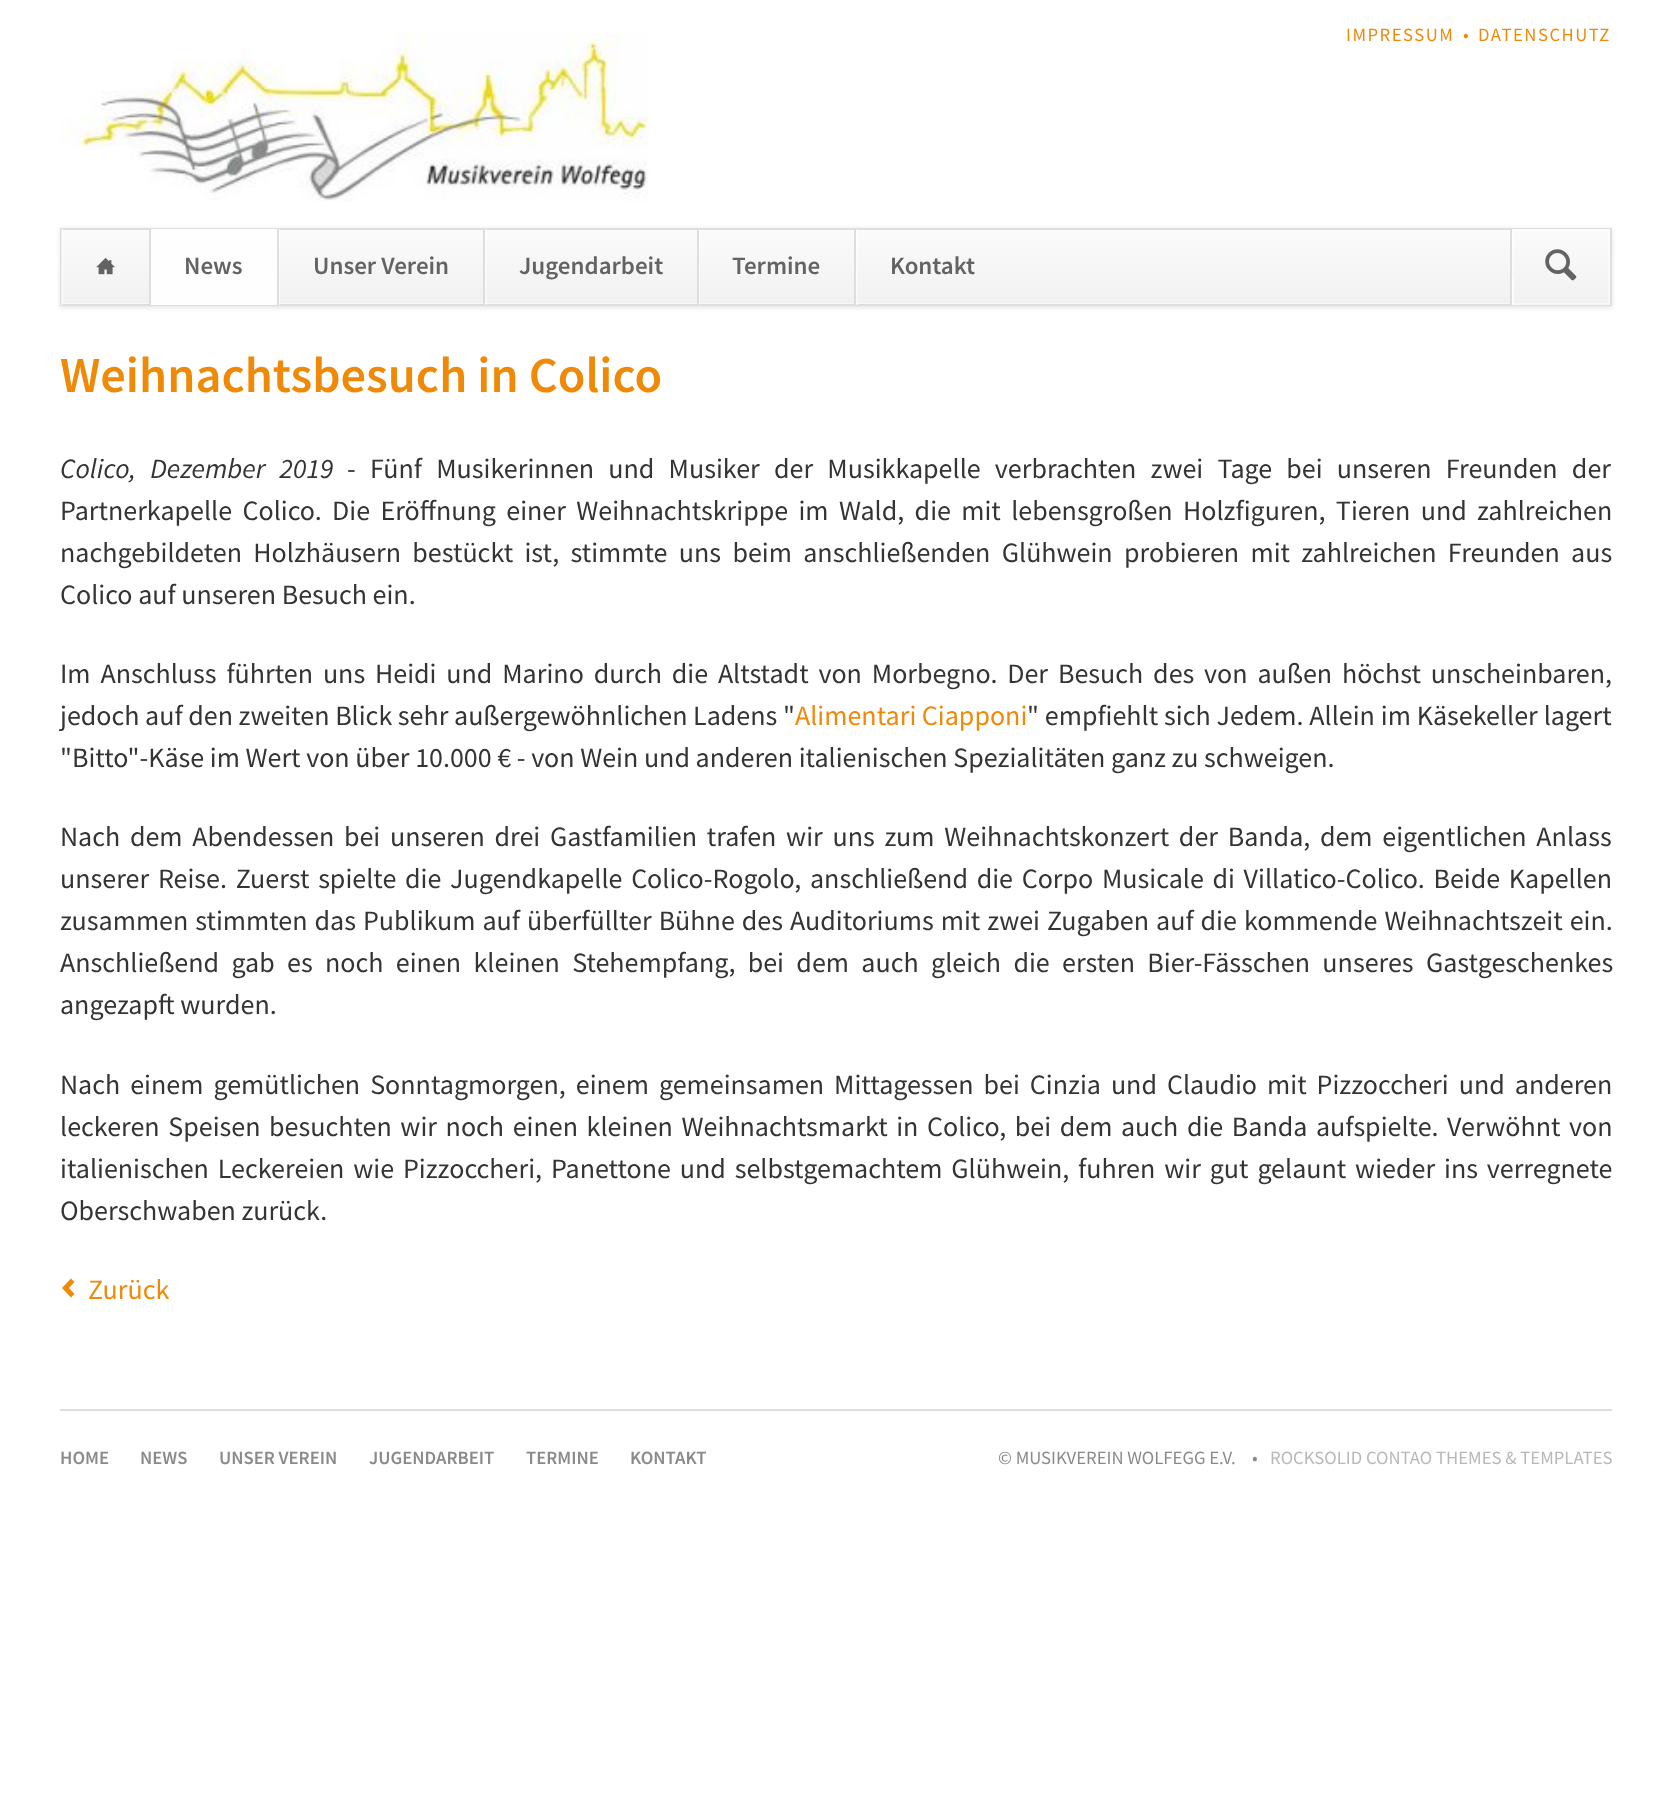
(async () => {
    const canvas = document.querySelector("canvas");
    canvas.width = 1670;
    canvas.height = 1798;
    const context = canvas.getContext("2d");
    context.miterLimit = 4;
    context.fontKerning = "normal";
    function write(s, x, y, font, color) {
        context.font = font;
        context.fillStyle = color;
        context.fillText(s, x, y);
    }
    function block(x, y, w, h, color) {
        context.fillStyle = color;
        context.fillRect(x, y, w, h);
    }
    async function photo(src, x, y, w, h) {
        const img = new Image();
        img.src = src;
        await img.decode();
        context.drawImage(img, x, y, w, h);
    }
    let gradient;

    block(0, 0, 1670, 1798, "rgb(255, 255, 255)");
    await photo("media/1.png", 59, 33, 590, 168);
    context.letterSpacing = "1.5px";
    write("IMPRESSUM", 1346, 41, "18.7px Source Sans Pro", "rgb(239, 138, 9)");
    write("•", 1463, 41, "18.7px Source Sans Pro", "rgb(239, 138, 9)");
    write("DATENSCHUTZ", 1478, 41, "18.7px Source Sans Pro", "rgb(239, 138, 9)");
    context.fillStyle = "rgba(0, 0, 0, 0.1)";
    context.filter = "blur(2.5px)";
    context.beginPath();
    context.rect(60, 229, 1552, 79);
    context.fill();
    context.filter = "none";
    gradient = context.createLinearGradient(836, 229, 836, 305);
    gradient.addColorStop(0, "rgb(251, 251, 251)");
    gradient.addColorStop(1, "rgb(241, 241, 241)");
    context.fillStyle = gradient;
    context.fillRect(62, 230, 1448, 74);
    context.strokeStyle = "rgba(255, 255, 255, 0.5)";
    context.lineWidth = 2;
    context.strokeRect(62, 230, 1547, 74);
    context.strokeStyle = "rgb(222, 222, 222)";
    context.strokeRect(61, 229, 1550, 76);
    block(61, 229, 2, 76, "rgba(255, 255, 255, 0.5)");
    await photo("media/2.png", 96, 257, 19, 18);
    block(151, 229, 126, 76, "rgb(254, 254, 254)");
    block(149, 229, 2, 76, "rgb(222, 222, 222)");
    context.letterSpacing = "0px";
    write("News", 184, 274, "600 25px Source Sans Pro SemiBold", "rgb(99, 99, 99)");
    block(279, 229, 1, 76, "rgba(255, 255, 255, 0.5)");
    block(277, 229, 2, 76, "rgb(222, 222, 222)");
    write("Unser Verein", 313, 274, "600 25px Source Sans Pro SemiBold", "rgb(99, 99, 99)");
    block(485, 229, 2, 76, "rgba(255, 255, 255, 0.5)");
    block(483, 229, 2, 76, "rgb(222, 222, 222)");
    write("Jugendarbeit", 519, 274, "600 25px Source Sans Pro SemiBold", "rgb(99, 99, 99)");
    block(699, 229, 1, 76, "rgba(255, 255, 255, 0.5)");
    block(697, 229, 2, 76, "rgb(222, 222, 222)");
    write("Termine", 732, 274, "600 25px Source Sans Pro SemiBold", "rgb(99, 99, 99)");
    block(856, 229, 2, 76, "rgba(255, 255, 255, 0.5)");
    block(854, 229, 2, 76, "rgb(222, 222, 222)");
    write("Kontakt", 890, 274, "600 25px Source Sans Pro SemiBold", "rgb(99, 99, 99)");
    gradient = context.createLinearGradient(1561, 229, 1561, 305);
    gradient.addColorStop(0, "rgb(251, 251, 251)");
    gradient.addColorStop(1, "rgb(241, 241, 241)");
    context.fillStyle = gradient;
    context.fillRect(1512, 229, 98, 76);
    context.strokeStyle = "rgba(255, 255, 255, 0.5)";
    context.strokeRect(1513, 230, 96, 74);
    block(1512, 278, 2, 27, "rgba(255, 255, 255, 0.5)");
    block(1510, 229, 2, 76, "rgb(222, 222, 222)");
    await photo("media/3.png", 1545, 249, 32, 32);
    write("Weihnachtsbesuch in Colico", 60, 392, "600 50.4px Source Sans Pro SemiBold", "rgb(239, 138, 9)");
    context.wordSpacing = "8.6px";
    write("Colico, Dezember 2019", 60, 478, "italic 28px Source Sans Pro", "rgb(52, 52, 52)");
    write("- Fünf Musikerinnen und Musiker der Musikkapelle verbrachten zwei Tage bei unseren Freunden der", 347, 478, "28px Source Sans Pro", "rgb(52, 52, 52)");
    context.wordSpacing = "4.75px";
    write("Partnerkapelle Colico. Die Eröffnung einer Weihnachtskrippe im Wald, die mit lebensgroßen Holzfiguren, Tieren und zahlreichen", 60, 520, "28px Source Sans Pro", "rgb(52, 52, 52)");
    context.wordSpacing = "5.75px";
    write("nachgebildeten Holzhäusern bestückt ist, stimmte uns beim anschließenden Glühwein probieren mit zahlreichen Freunden aus", 60, 562, "28px Source Sans Pro", "rgb(52, 52, 52)");
    context.wordSpacing = "0px";
    write("Colico auf unseren Besuch ein.", 60, 604, "28px Source Sans Pro", "rgb(52, 52, 52)");
    context.wordSpacing = "4.25px";
    write("Im Anschluss führten uns Heidi und Marino durch die Altstadt von Morbegno. Der Besuch des von außen höchst unscheinbaren,", 60, 683, "28px Source Sans Pro", "rgb(52, 52, 52)");
    context.wordSpacing = "0px";
    write("jedoch auf den zweiten Blick sehr außergewöhnlichen Ladens \"", 60, 725, "28px Source Sans Pro", "rgb(52, 52, 52)");
    write("Alimentari Ciapponi", 795, 725, "28px Source Sans Pro", "rgb(239, 138, 9)");
    context.wordSpacing = "0.25px";
    write("\" empfiehlt sich Jedem. Allein im Käsekeller lagert", 1027, 725, "28px Source Sans Pro", "rgb(52, 52, 52)");
    context.wordSpacing = "0px";
    write("\"Bitto\"-Käse im Wert von über 10.000 € - von Wein und anderen italienischen Spezialitäten ganz zu schweigen.", 60, 767, "28px Source Sans Pro", "rgb(52, 52, 52)");
    context.wordSpacing = "4.1px";
    write("Nach dem Abendessen bei unseren drei Gastfamilien trafen wir uns zum Weihnachtskonzert der Banda, dem eigentlichen Anlass", 60, 846, "28px Source Sans Pro", "rgb(52, 52, 52)");
    context.wordSpacing = "3.1px";
    write("unserer Reise. Zuerst spielte die Jugendkapelle Colico-Rogolo, anschließend die Corpo Musicale di Villatico-Colico. Beide Kapellen", 60, 888, "28px Source Sans Pro", "rgb(52, 52, 52)");
    context.wordSpacing = "1.4px";
    write("zusammen stimmten das Publikum auf überfüllter Bühne des Auditoriums mit zwei Zugaben auf die kommende Weihnachtszeit ein.", 60, 930, "28px Source Sans Pro", "rgb(52, 52, 52)");
    context.wordSpacing = "6.75px";
    write("Anschließend gab es noch einen kleinen Stehempfang, bei dem auch gleich die ersten Bier-Fässchen unseres Gastgeschenkes", 60, 972, "28px Source Sans Pro", "rgb(52, 52, 52)");
    context.wordSpacing = "0px";
    write("angezapft wurden.", 60, 1014, "28px Source Sans Pro", "rgb(52, 52, 52)");
    context.wordSpacing = "4.4px";
    write("Nach einem gemütlichen Sonntagmorgen, einem gemeinsamen Mittagessen bei Cinzia und Claudio mit Pizzoccheri und anderen", 60, 1094, "28px Source Sans Pro", "rgb(52, 52, 52)");
    context.wordSpacing = "3px";
    write("leckeren Speisen besuchten wir noch einen kleinen Weihnachtsmarkt in Colico, bei dem auch die Banda aufspielte. Verwöhnt von", 60, 1136, "28px Source Sans Pro", "rgb(52, 52, 52)");
    context.wordSpacing = "3.25px";
    write("italienischen Leckereien wie Pizzoccheri, Panettone und selbstgemachtem Glühwein, fuhren wir gut gelaunt wieder ins verregnete", 60, 1178, "28px Source Sans Pro", "rgb(52, 52, 52)");
    context.wordSpacing = "0px";
    write("Oberschwaben zurück.", 60, 1220, "28px Source Sans Pro", "rgb(52, 52, 52)");
    context.fillStyle = "rgb(239, 138, 9)";
    context.beginPath();
    context.moveTo(71, 1297.5);
    context.lineTo(74.5, 1294);
    context.lineTo(69, 1288);
    context.lineTo(74.5, 1282);
    context.lineTo(71, 1278.5);
    context.lineTo(62, 1288);
    context.closePath();
    context.fill();
    write("Zurück", 88, 1299, "28px Source Sans Pro", "rgb(239, 138, 9)");
    block(60, 1409, 1552, 2, "rgb(222, 222, 222)");
    write("HOME", 60, 1464, "600 18.7px Source Sans Pro SemiBold", "rgb(138, 138, 138)");
    write("NEWS", 140, 1464, "600 18.7px Source Sans Pro SemiBold", "rgb(138, 138, 138)");
    write("UNSER VEREIN", 219, 1464, "600 18.7px Source Sans Pro SemiBold", "rgb(138, 138, 138)");
    write("JUGENDARBEIT", 369, 1464, "600 18.7px Source Sans Pro SemiBold", "rgb(138, 138, 138)");
    write("TERMINE", 526, 1464, "600 18.7px Source Sans Pro SemiBold", "rgb(138, 138, 138)");
    write("KONTAKT", 630, 1464, "600 18.7px Source Sans Pro SemiBold", "rgb(138, 138, 138)");
    write("© MUSIKVEREIN WOLFEGG E.V.", 998, 1464, "18.7px Source Sans Pro", "rgb(138, 138, 138)");
    write("•", 1252, 1464, "18.7px Source Sans Pro", "rgb(138, 138, 138)");
    write("ROCKSOLID CONTAO THEMES & TEMPLATES", 1270, 1464, "18.7px Source Sans Pro", "rgb(184, 184, 184)");
})();
